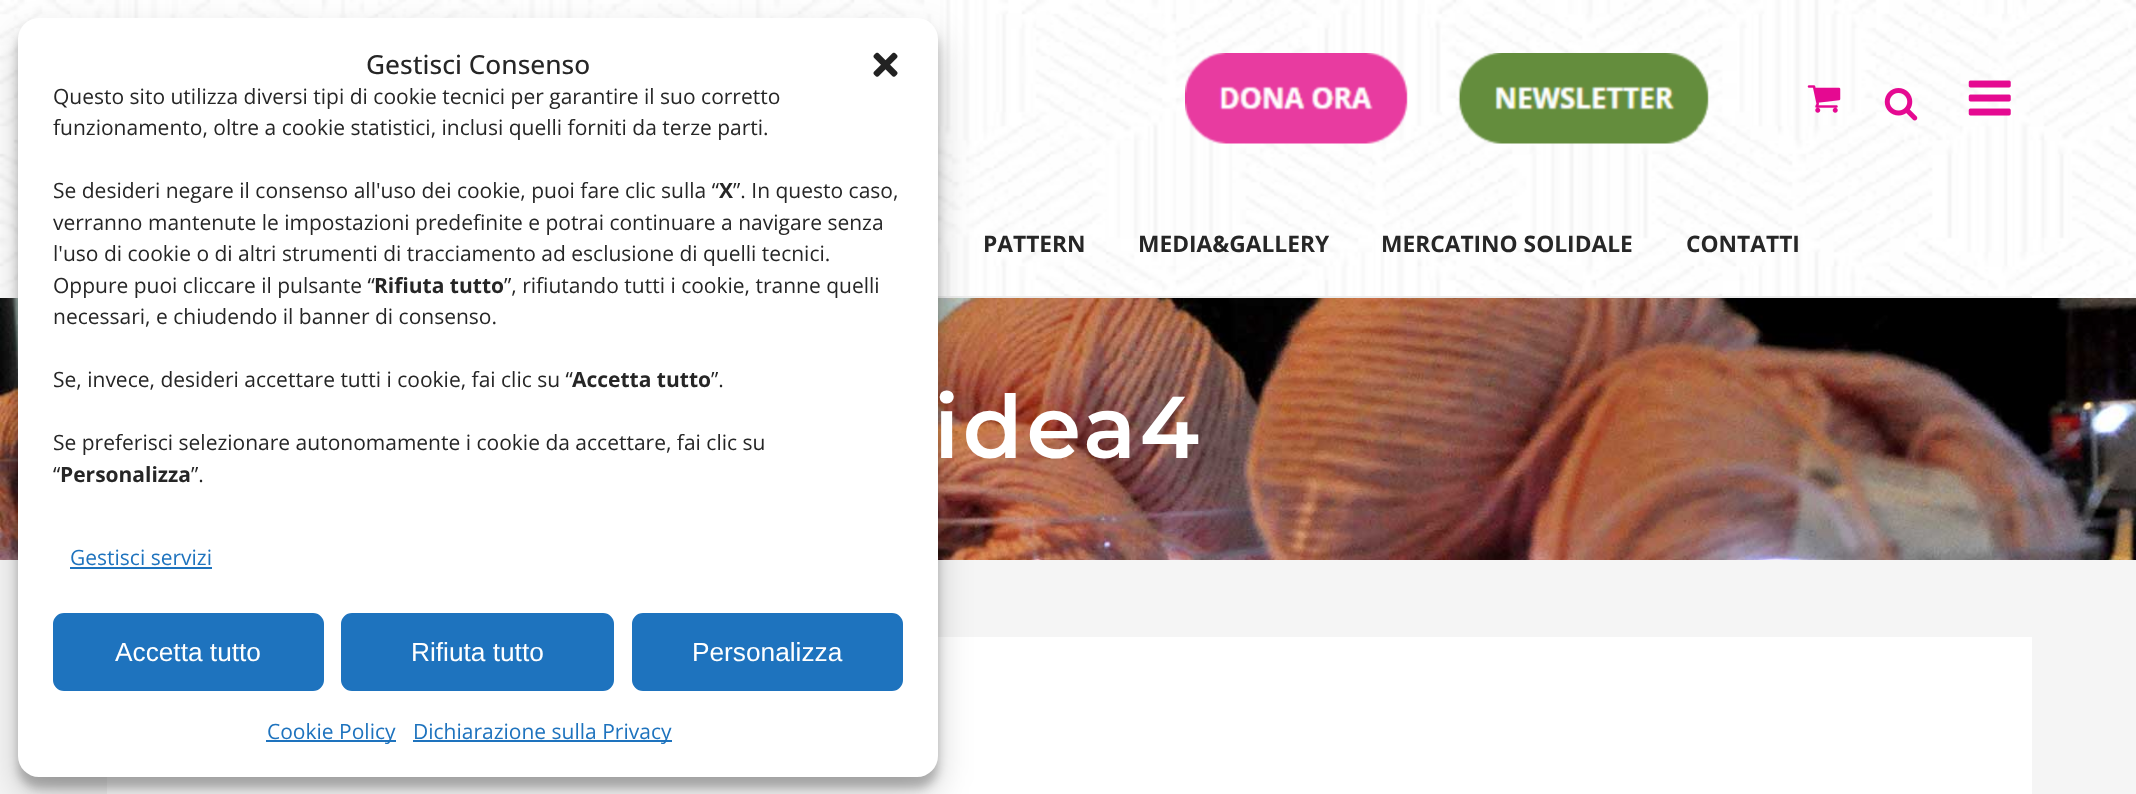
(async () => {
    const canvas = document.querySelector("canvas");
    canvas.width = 2136;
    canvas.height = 794;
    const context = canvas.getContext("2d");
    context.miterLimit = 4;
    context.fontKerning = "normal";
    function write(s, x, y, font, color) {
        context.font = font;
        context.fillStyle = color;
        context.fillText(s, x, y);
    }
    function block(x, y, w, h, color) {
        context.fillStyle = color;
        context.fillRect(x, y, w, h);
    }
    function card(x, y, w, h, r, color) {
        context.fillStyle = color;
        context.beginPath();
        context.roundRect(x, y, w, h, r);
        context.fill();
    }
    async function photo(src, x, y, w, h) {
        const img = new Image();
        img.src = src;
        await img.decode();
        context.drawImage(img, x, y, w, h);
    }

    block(0, 0, 2136, 794, "rgb(245, 245, 245)");
    await photo("media/2.png", 0, 0, 2136, 298);
    block(938, 296, 1094, 2, "rgb(237, 237, 237)");
    await photo("media/8.png", 0, 298, 2136, 262);
    block(107, 637, 1925, 157, "rgb(255, 255, 255)");
    context.fillStyle = "rgba(0, 0, 0, 0.23)";
    context.filter = "blur(5px)";
    context.beginPath();
    context.roundRect(18, 28, 920, 760, 21);
    context.fill();
    context.filter = "none";
    context.fillStyle = "rgba(0, 0, 0, 0.19)";
    context.filter = "blur(17.5px)";
    context.beginPath();
    context.roundRect(18, 35, 920, 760, 21);
    context.fill();
    context.filter = "none";
    card(18, 18, 920, 759, 21, "rgb(255, 255, 255)");
    write("Gestisci Consenso", 366, 74, "500 26.25px Open Sans", "rgb(38, 38, 38)");
    await photo("media/1.png", 873, 52, 25, 25);
    write("Questo sito utilizza diversi tipi di cookie tecnici per garantire il suo corretto", 53, 104, "21px Open Sans", "rgb(38, 38, 38)");
    write("funzionamento, oltre a cookie statistici, inclusi quelli forniti da terze parti.", 53, 135, "21px Open Sans", "rgb(38, 38, 38)");
    write("Se desideri negare il consenso all'uso dei cookie, puoi fare clic sulla “", 53, 198, "21px Open Sans", "rgb(38, 38, 38)");
    write("X", 719, 198, "bold 21px Open Sans", "rgb(38, 38, 38)");
    write("”. In questo caso,", 733, 198, "21px Open Sans", "rgb(38, 38, 38)");
    write("verranno mantenute le impostazioni predefinite e potrai continuare a navigare senza", 53, 230, "21px Open Sans", "rgb(38, 38, 38)");
    write("l'uso di cookie o di altri strumenti di tracciamento ad esclusione di quelli tecnici.", 53, 261, "21px Open Sans", "rgb(38, 38, 38)");
    write("Oppure puoi cliccare il pulsante “", 53, 293, "21px Open Sans", "rgb(38, 38, 38)");
    write("Rifiuta tutto", 374, 293, "bold 21px Open Sans", "rgb(38, 38, 38)");
    write("”, rifiutando tutti i cookie, tranne quelli", 504, 293, "21px Open Sans", "rgb(38, 38, 38)");
    write("necessari, e chiudendo il banner di consenso.", 53, 324, "21px Open Sans", "rgb(38, 38, 38)");
    write("Se, invece, desideri accettare tutti i cookie, fai clic su “", 53, 387, "21px Open Sans", "rgb(38, 38, 38)");
    write("Accetta tutto", 572, 387, "bold 21px Open Sans", "rgb(38, 38, 38)");
    write("”.", 711, 387, "21px Open Sans", "rgb(38, 38, 38)");
    write("Se preferisci selezionare autonomamente i cookie da accettare, fai clic su", 53, 450, "21px Open Sans", "rgb(38, 38, 38)");
    write("“", 53, 482, "21px Open Sans", "rgb(38, 38, 38)");
    write("Personalizza", 60, 482, "bold 21px Open Sans", "rgb(38, 38, 38)");
    write("”.", 191, 482, "21px Open Sans", "rgb(38, 38, 38)");
    write("Gestisci servizi", 70, 565, "21px Open Sans", "rgb(30, 115, 190)");
    block(70, 567, 142, 2, "rgb(30, 115, 190)");
    context.beginPath();
    context.roundRect(54, 614, 269, 76, 10);
    context.fill();
    context.strokeStyle = "rgb(30, 115, 190)";
    context.lineWidth = 2;
    context.stroke();
    write("Accetta tutto", 115, 661, "26.25px Liberation Sans", "rgb(255, 255, 255)");
    context.fillStyle = "rgb(30, 115, 190)";
    context.beginPath();
    context.roundRect(342, 614, 271, 76, 10);
    context.fill();
    context.stroke();
    write("Rifiuta tutto", 411, 661, "26.25px Liberation Sans", "rgb(255, 255, 255)");
    context.fillStyle = "rgb(30, 115, 190)";
    context.beginPath();
    context.roundRect(633, 614, 269, 76, 10);
    context.fill();
    context.stroke();
    write("Personalizza", 692, 661, "26.25px Liberation Sans", "rgb(255, 255, 255)");
    block(266, 740, 130, 2, "rgb(30, 115, 190)");
    write("Cookie Policy", 267, 739, "21px Open Sans", "rgb(30, 115, 190)");
    block(413, 740, 259, 2, "rgb(30, 115, 190)");
    write("Dichiarazione sulla Privacy", 413, 739, "21px Open Sans", "rgb(30, 115, 190)");
    await photo("media/3.png", 1185, 53, 223, 91);
    await photo("media/4.png", 1458, 53, 251, 91);
    await photo("media/5.png", 1807, 85, 34, 28);
    await photo("media/6.png", 1884, 88, 34, 33);
    await photo("media/7.png", 1968, 80, 43, 36);
    write("PATTERN", 983, 252, "bold 22.75px Open Sans", "rgb(38, 38, 38)");
    write("MEDIA&GALLERY", 1138, 252, "bold 22.75px Open Sans", "rgb(38, 38, 38)");
    write("MERCATINO SOLIDALE", 1381, 252, "bold 22.75px Open Sans", "rgb(38, 38, 38)");
    write("CONTATTI", 1686, 252, "bold 22.75px Open Sans", "rgb(38, 38, 38)");
    context.letterSpacing = "3.5px";
    write("idea4", 934, 458, "600 87.5px Montserrat", "rgb(255, 255, 255)");
})();
